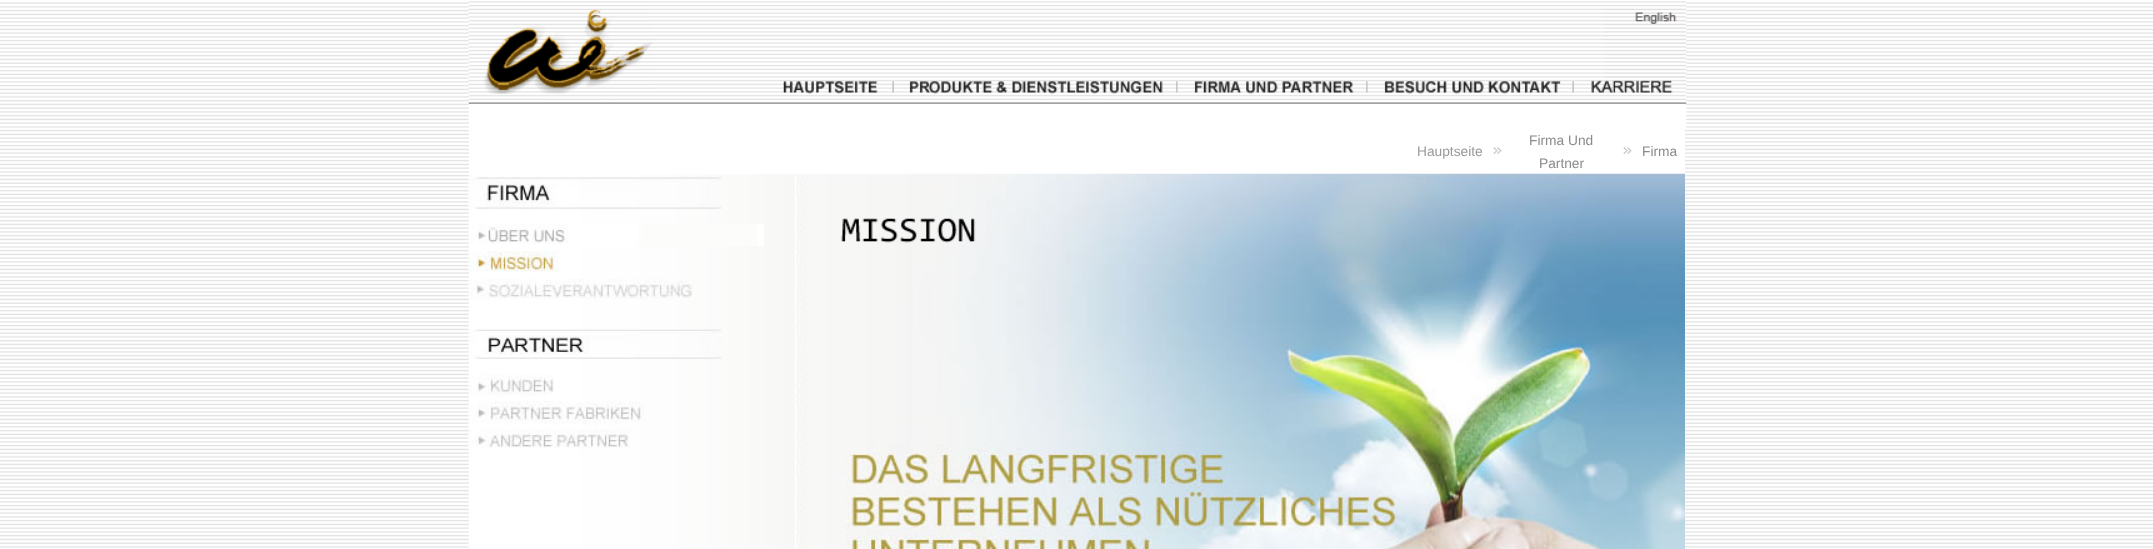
(async () => {
    const canvas = document.querySelector("canvas");
    canvas.width = 2153;
    canvas.height = 549;
    const context = canvas.getContext("2d");
    context.miterLimit = 4;
    context.fontKerning = "normal";
    function write(s, x, y, font, color) {
        context.font = font;
        context.fillStyle = color;
        context.fillText(s, x, y);
    }
    function block(x, y, w, h, color) {
        context.fillStyle = color;
        context.fillRect(x, y, w, h);
    }
    async function photo(src, x, y, w, h) {
        const img = new Image();
        img.src = src;
        await img.decode();
        context.drawImage(img, x, y, w, h);
    }

    block(0, 0, 2153, 549, "rgb(255, 255, 255)");
    await photo("media/1.png", 0, 2, 2153, 546);
    await photo("media/2.png", 468, 1, 1219, 127);
    await photo("media/3.png", 468, 3, 185, 91);
    await photo("media/4.png", 1604, 9, 81, 69);
    await photo("media/5.png", 783, 81, 111, 13);
    await photo("media/6.png", 909, 81, 269, 13);
    await photo("media/7.png", 1194, 81, 174, 13);
    await photo("media/8.png", 1384, 81, 190, 13);
    await photo("media/9.png", 1591, 80, 82, 13);
    block(469, 130, 1216, 418, "rgb(255, 255, 255)");
    write("Hauptseite", 1417, 156, "13.75px Liberation Sans", "rgb(153, 153, 153)");
    await photo("media/10.png", 1493, 147, 9, 7);
    write("Firma Und", 1529, 145, "13.75px Liberation Sans", "rgb(139, 139, 139)");
    write("Partner", 1539, 168, "13.75px Liberation Sans", "rgb(139, 139, 139)");
    await photo("media/11.png", 1623, 147, 9, 7);
    write("Firma", 1642, 156, "13.75px Liberation Sans", "rgb(139, 139, 139)");
    await photo("media/12.png", 468, 174, 327, 375);
    await photo("media/13.png", 468, 175, 254, 34);
    await photo("media/14.png", 468, 224, 296, 22);
    await photo("media/15.png", 468, 251, 91, 21);
    await photo("media/16.png", 468, 279, 225, 21);
    await photo("media/17.png", 468, 329, 254, 30);
    await photo("media/18.png", 468, 374, 86, 22);
    await photo("media/19.png", 468, 401, 178, 23);
    await photo("media/20.png", 468, 429, 161, 21);
    await photo("media/21.png", 796, 173, 889, 376);
    await photo("media/22.png", 841, 218, 135, 25);
})();
